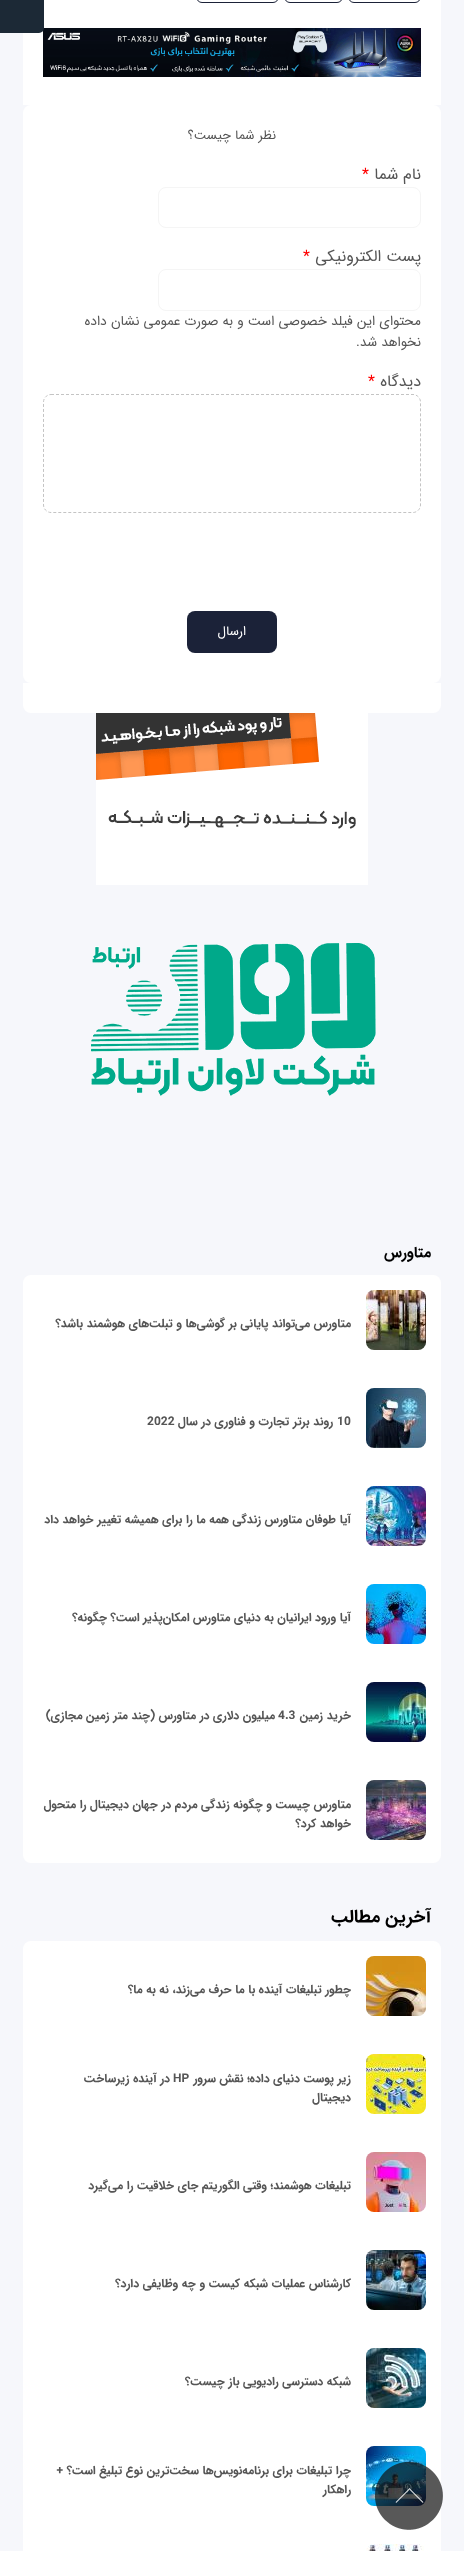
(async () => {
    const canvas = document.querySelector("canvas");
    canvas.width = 464;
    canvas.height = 2551;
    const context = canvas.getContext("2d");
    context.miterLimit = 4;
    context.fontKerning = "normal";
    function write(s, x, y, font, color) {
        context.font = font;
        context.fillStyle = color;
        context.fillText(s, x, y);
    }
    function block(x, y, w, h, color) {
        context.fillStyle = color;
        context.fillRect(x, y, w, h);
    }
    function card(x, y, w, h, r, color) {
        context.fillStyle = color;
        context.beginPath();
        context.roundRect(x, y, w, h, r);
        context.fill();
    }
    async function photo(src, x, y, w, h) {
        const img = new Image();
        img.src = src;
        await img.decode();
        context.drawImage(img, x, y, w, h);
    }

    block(0, 0, 464, 2551, "rgb(246, 247, 251)");
    card(23, -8, 418, 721, 8, "rgb(255, 255, 255)");
    await photo("media/1.png", 43, 28, 378, 49);
    context.fillStyle = "rgb(28, 41, 54)";
    context.beginPath();
    context.roundRect(0, 0, 44, 33, [0, 0, 5, 0]);
    context.fill();
    context.beginPath();
    context.roundRect(348.5, -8.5, 72, 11, 7.5);
    context.strokeStyle = "rgb(27, 34, 56)";
    context.stroke();
    context.beginPath();
    context.roundRect(284.5, -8.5, 58, 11, 7.5);
    context.stroke();
    context.beginPath();
    context.roundRect(196.5, -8.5, 82, 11, 7.5);
    context.stroke();
    block(23, 105, 418, 578, "rgb(246, 247, 251)");
    card(23, 105, 418, 578, 8, "rgb(255, 255, 255)");
    context.direction = "rtl";
    write("نظر شما چیست؟", 276, 139, "13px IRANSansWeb", "rgb(85, 85, 85)");
    write("نام شما", 421, 179, "16px IRANSansWeb", "rgb(85, 85, 85)");
    context.direction = "ltr";
    write("*", 362, 179, "16px IRANSansWeb", "rgb(255, 0, 0)");
    context.beginPath();
    context.roundRect(158.5, 187.5, 262, 40, 7.5);
    context.strokeStyle = "rgb(245, 245, 245)";
    context.stroke();
    context.direction = "rtl";
    write("پست الکترونیکی", 421, 261, "16px IRANSansWeb", "rgb(85, 85, 85)");
    context.direction = "ltr";
    write("*", 303, 261, "16px IRANSansWeb", "rgb(255, 0, 0)");
    context.beginPath();
    context.roundRect(158.5, 269.5, 262, 41, 7.5);
    context.stroke();
    context.direction = "rtl";
    write("محتوای این فیلد خصوصی است و به صورت عمومی نشان داده", 421, 325, "13.6px IRANSansWeb", "rgb(85, 85, 85)");
    write("نخواهد شد.", 421, 346, "13.6px IRANSansWeb", "rgb(85, 85, 85)");
    write("دیدگاه", 421, 386, "16px IRANSansWeb", "rgb(85, 85, 85)");
    context.direction = "ltr";
    write("*", 368, 386, "16px IRANSansWeb", "rgb(255, 0, 0)");
    context.beginPath();
    context.moveTo(51, 394.5);
    context.lineTo(413, 394.5);
    context.bezierCurveTo(417, 394.5, 420.5, 398, 420.5, 402);
    context.lineTo(420.5, 505);
    context.bezierCurveTo(420.5, 509, 417, 512.5, 413, 512.5);
    context.lineTo(51, 512.5);
    context.bezierCurveTo(47, 512.5, 43.5, 509, 43.5, 505);
    context.lineTo(43.5, 402);
    context.bezierCurveTo(43.5, 398, 47, 394.5, 51, 394.5);
    context.closePath();
    context.strokeStyle = "rgb(196, 196, 196)";
    context.setLineDash([3, 2]);
    context.stroke();
    card(187, 611, 90, 42, 8, "rgb(27, 34, 56)");
    context.direction = "rtl";
    write("ارسال", 246, 635, "13px IRANSansWeb", "rgb(255, 255, 255)");
    await photo("media/2.png", 96, 713, 272, 172);
    await photo("media/3.png", 91, 943, 285, 153);
    write("متاورس", 431, 1257, "bold 15px IRANSansWeb", "rgb(0, 0, 0)");
    card(23, 1275, 418, 588, 8, "rgb(255, 255, 255)");
    await photo("media/4.png", 366, 1290, 60, 60);
    write("متاورس می‌تواند پایانی بر گوشی‌ها و تبلت‌های هوشمند باشد؟", 351, 1327, "bold 12px IRANSansWeb", "rgb(85, 85, 85)");
    await photo("media/5.png", 366, 1388, 60, 60);
    context.direction = "ltr";
    write("10", 337, 1425, "bold 12px IRANSansWeb", "rgb(85, 85, 85)");
    context.direction = "rtl";
    write("روند برتر تجارت و فناوری در سال", 333, 1425, "bold 12px IRANSansWeb", "rgb(85, 85, 85)");
    context.direction = "ltr";
    write("2022", 147, 1425, "bold 12px IRANSansWeb", "rgb(85, 85, 85)");
    await photo("media/6.png", 366, 1486, 60, 60);
    context.direction = "rtl";
    write("آیا طوفان متاورس زندگی همه ما را برای همیشه تغییر خواهد داد", 351, 1523, "bold 12px IRANSansWeb", "rgb(85, 85, 85)");
    await photo("media/7.png", 366, 1584, 60, 60);
    write("آیا ورود ایرانیان به دنیای متاورس امکان‌پذیر است؟ چگونه؟", 351, 1621, "bold 12px IRANSansWeb", "rgb(85, 85, 85)");
    await photo("media/8.png", 366, 1682, 60, 60);
    write("خرید زمین", 351, 1719, "bold 12px IRANSansWeb", "rgb(85, 85, 85)");
    context.direction = "ltr";
    write("4.3", 278, 1719, "bold 12px IRANSansWeb", "rgb(85, 85, 85)");
    context.direction = "rtl";
    write("میلیون دلاری در متاورس (چند متر زمین مجازی)", 275, 1719, "bold 12px IRANSansWeb", "rgb(85, 85, 85)");
    await photo("media/9.png", 366, 1780, 60, 60);
    write("متاورس چیست و چگونه زندگی مردم در جهان دیجیتال را متحول", 351, 1808, "bold 12px IRANSansWeb", "rgb(85, 85, 85)");
    write("خواهد کرد؟", 351, 1827, "bold 12px IRANSansWeb", "rgb(85, 85, 85)");
    write("آخرین مطالب", 431, 1922, "bold 18px IRANSansWeb", "rgb(0, 0, 0)");
    card(23, 1941, 418, 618, 8, "rgb(255, 255, 255)");
    await photo("media/10.png", 366, 1956, 60, 60);
    write("چطور تبلیغات آینده با ما حرف می‌زند، نه به ما؟", 351, 1993, "bold 12px IRANSansWeb", "rgb(85, 85, 85)");
    await photo("media/11.png", 366, 2054, 60, 60);
    write("زیر پوست دنیای داده؛ نقش سرور", 351, 2082, "bold 12px IRANSansWeb", "rgb(85, 85, 85)");
    context.direction = "ltr";
    write("HP", 173, 2082, "bold 12px IRANSansWeb", "rgb(85, 85, 85)");
    context.direction = "rtl";
    write("در آینده زیرساخت", 170, 2082, "bold 12px IRANSansWeb", "rgb(85, 85, 85)");
    write("دیجیتال", 351, 2101, "bold 12px IRANSansWeb", "rgb(85, 85, 85)");
    await photo("media/12.png", 366, 2152, 60, 60);
    write("تبلیغات هوشمند؛ وقتی الگوریتم جای خلاقیت را می‌گیرد", 351, 2189, "bold 12px IRANSansWeb", "rgb(85, 85, 85)");
    await photo("media/13.png", 366, 2250, 60, 60);
    write("کارشناس عملیات شبکه کیست و چه وظایفی دارد؟", 351, 2287, "bold 12px IRANSansWeb", "rgb(85, 85, 85)");
    await photo("media/14.png", 366, 2348, 60, 60);
    write("شبکه دسترسی رادیویی باز چیست؟", 351, 2385, "bold 12px IRANSansWeb", "rgb(85, 85, 85)");
    await photo("media/15.png", 366, 2446, 60, 60);
    write("چرا تبلیغات برای برنامه‌نویس‌ها سخت‌ترین نوع تبلیغ است؟ +", 351, 2474, "bold 12px IRANSansWeb", "rgb(85, 85, 85)");
    write("راهکار", 351, 2493, "bold 12px IRANSansWeb", "rgb(85, 85, 85)");
    await photo("media/16.png", 366, 2544, 58, 7);
    await photo("media/17.png", 374, 2461, 69, 69);
})();
